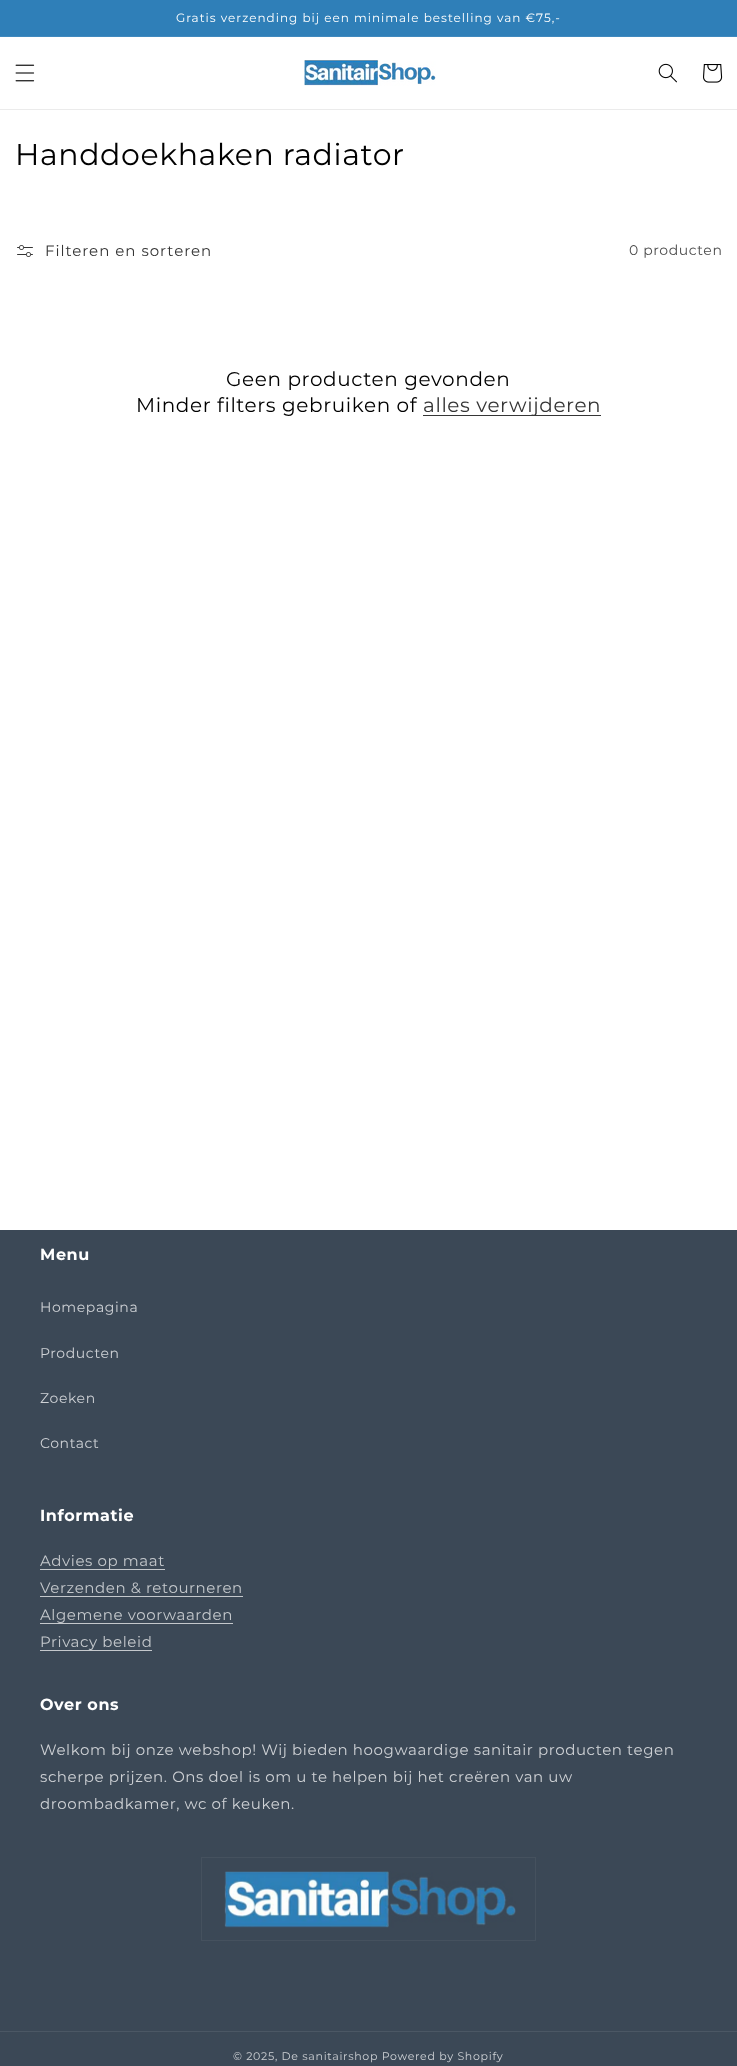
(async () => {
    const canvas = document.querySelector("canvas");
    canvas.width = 737;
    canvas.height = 2066;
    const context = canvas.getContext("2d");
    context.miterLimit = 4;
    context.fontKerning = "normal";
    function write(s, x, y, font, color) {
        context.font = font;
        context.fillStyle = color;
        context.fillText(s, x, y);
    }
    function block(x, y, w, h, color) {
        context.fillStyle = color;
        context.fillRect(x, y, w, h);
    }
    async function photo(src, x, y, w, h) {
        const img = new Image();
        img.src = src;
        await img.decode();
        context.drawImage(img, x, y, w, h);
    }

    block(0, 0, 737, 2066, "rgb(255, 255, 255)");
    block(0, 0, 737, 36, "rgb(47, 127, 184)");
    block(0, 36, 737, 1, "rgb(64, 137, 190)");
    context.letterSpacing = "1px";
    write("Gratis verzending bij een minimale bestelling van €75,-", 176, 22, "12px Montserrat", "rgb(255, 255, 255)");
    block(0, 109, 737, 1, "rgb(235, 235, 235)");
    await photo("media/1.png", 15, 64, 20, 18);
    await photo("media/2.png", 304, 60, 132, 26);
    await photo("media/3.png", 658, 63, 19, 20);
    await photo("media/4.png", 703, 64, 20, 19);
    context.letterSpacing = "0.6px";
    write("Handdoekhaken radiator", 15, 165, "30px Montserrat", "rgb(0, 0, 0)");
    await photo("media/5.png", 17, 245, 16, 12);
    context.letterSpacing = "1px";
    write("Filteren en sorteren", 45, 256, "15px Montserrat", "rgb(53, 53, 53)");
    context.letterSpacing = "0.6px";
    write("0 producten", 629, 255, "14px Montserrat", "rgb(77, 77, 77)");
    write("Geen producten gevonden", 226, 386, "20px Montserrat", "rgb(0, 0, 0)");
    write("Minder filters gebruiken of", 136, 412, "20px Montserrat", "rgb(0, 0, 0)");
    block(423, 415, 178, 1, "rgb(54, 54, 54)");
    write("alles verwijderen", 423, 412, "20px Montserrat", "rgb(53, 53, 53)");
    block(0, 1230, 737, 836, "rgb(59, 72, 86)");
    write("Menu", 40, 1260, "bold 16px Montserrat", "rgb(255, 255, 255)");
    write("Homepagina", 40, 1312, "14px Montserrat", "rgb(206, 209, 213)");
    write("Producten", 40, 1358, "14px Montserrat", "rgb(206, 209, 213)");
    write("Zoeken", 40, 1403, "14px Montserrat", "rgb(206, 209, 213)");
    write("Contact", 40, 1448, "14px Montserrat", "rgb(206, 209, 213)");
    write("Informatie", 40, 1521, "bold 16px Montserrat", "rgb(255, 255, 255)");
    write("Advies op maat", 40, 1566, "15px Montserrat", "rgb(196, 200, 204)");
    block(40, 1569, 125, 1, "rgb(196, 200, 204)");
    write("Verzenden & retourneren", 40, 1593, "15px Montserrat", "rgb(196, 200, 204)");
    block(40, 1596, 203, 1, "rgb(196, 200, 204)");
    write("Algemene voorwaarden", 40, 1620, "15px Montserrat", "rgb(196, 200, 204)");
    block(40, 1623, 193, 1, "rgb(196, 200, 204)");
    write("Privacy beleid", 40, 1647, "15px Montserrat", "rgb(196, 200, 204)");
    block(40, 1650, 112, 1, "rgb(196, 200, 204)");
    write("Over ons", 40, 1710, "bold 16px Montserrat", "rgb(255, 255, 255)");
    write("Welkom bij onze webshop! Wij bieden hoogwaardige sanitair producten tegen", 40, 1755, "15px Montserrat", "rgb(206, 209, 213)");
    write("scherpe prijzen. Ons doel is om u te helpen bij het creëren van uw", 40, 1782, "15px Montserrat", "rgb(206, 209, 213)");
    write("droombadkamer, wc of keuken.", 40, 1809, "15px Montserrat", "rgb(206, 209, 213)");
    context.strokeStyle = "rgb(69, 81, 94)";
    context.strokeRect(201.5, 1857.5, 334, 83);
    await photo("media/6.png", 224, 1871, 292, 57);
    block(0, 2031, 737, 1, "rgb(75, 87, 100)");
    context.letterSpacing = "0.7px";
    write("© 2025, De sanitairshop Powered by Shopify", 233, 2060, "11px Montserrat", "rgb(206, 209, 213)");
})();
